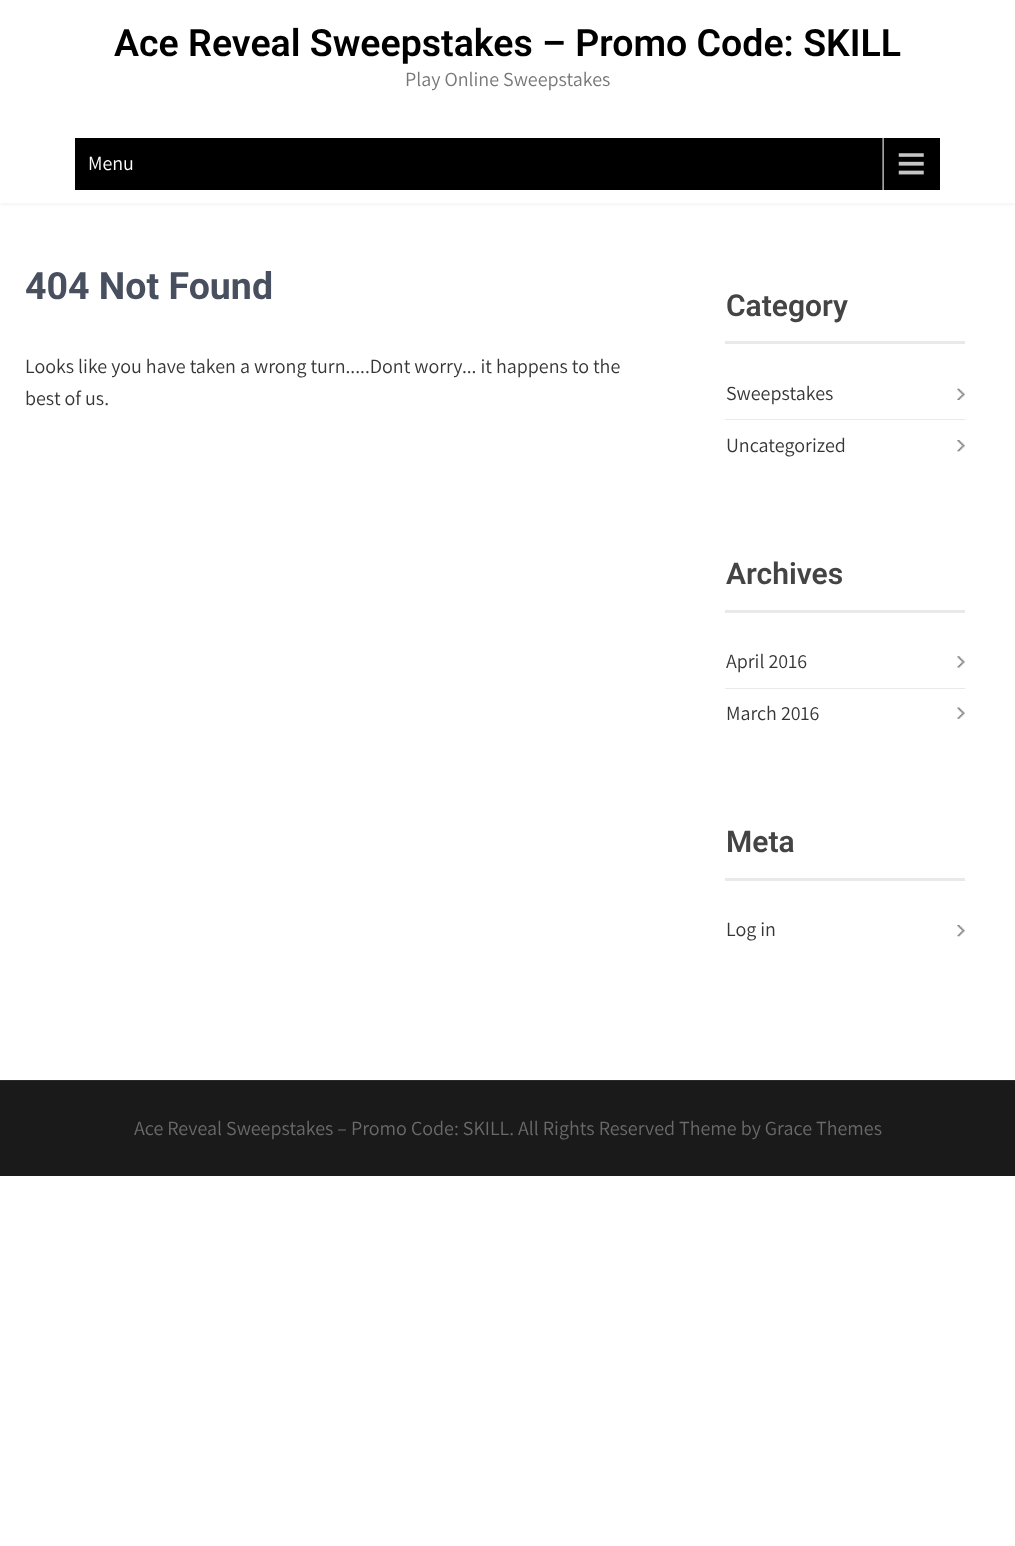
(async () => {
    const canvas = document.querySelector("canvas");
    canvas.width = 1015;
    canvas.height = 1546;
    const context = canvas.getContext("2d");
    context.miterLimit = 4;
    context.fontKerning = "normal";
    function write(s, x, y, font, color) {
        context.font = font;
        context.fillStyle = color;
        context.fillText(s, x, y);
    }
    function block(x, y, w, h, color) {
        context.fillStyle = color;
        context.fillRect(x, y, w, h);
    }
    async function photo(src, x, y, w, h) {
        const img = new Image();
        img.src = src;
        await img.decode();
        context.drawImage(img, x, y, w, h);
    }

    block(0, 0, 1015, 1546, "rgb(255, 255, 255)");
    context.fillStyle = "rgba(95, 95, 95, 0.1)";
    context.filter = "blur(2px)";
    context.beginPath();
    context.rect(0, 1, 1015, 203);
    context.fill();
    context.filter = "none";
    block(0, 0, 1015, 203, "rgb(255, 255, 255)");
    write("Ace Reveal Sweepstakes – Promo Code: SKILL", 114, 56, "600 37.5px Roboto", "rgb(0, 0, 0)");
    write("Play Online Sweepstakes", 405, 86, "20px Assistant", "rgb(119, 119, 119)");
    block(75, 138, 865, 52, "rgb(0, 0, 0)");
    await photo("media/1.png", 882, 137, 42, 53);
    write("Menu", 88, 170, "20px Assistant", "rgb(255, 255, 255)");
    write("404 Not Found", 25, 299, "bold 37.5px Roboto", "rgb(72, 79, 94)");
    write("Looks like you have taken a wrong turn.....Dont worry... it happens to the", 25, 373, "20px Assistant", "rgb(54, 54, 54)");
    write("best of us.", 25, 405, "20px Assistant", "rgb(54, 54, 54)");
    block(725, 341, 240, 3, "rgb(234, 232, 232)");
    write("Category", 726, 316, "600 30px Roboto", "rgb(68, 68, 68)");
    await photo("media/2.png", 957, 388, 8, 12);
    block(725, 419, 240, 1, "rgb(234, 232, 232)");
    write("Sweepstakes", 726, 400, "20px Assistant", "rgb(54, 54, 54)");
    await photo("media/3.png", 957, 440, 8, 12);
    write("Uncategorized", 726, 452, "20px Assistant", "rgb(54, 54, 54)");
    block(725, 610, 240, 3, "rgb(234, 232, 232)");
    write("Archives", 726, 584, "600 30px Roboto", "rgb(68, 68, 68)");
    await photo("media/4.png", 957, 656, 8, 12);
    block(725, 688, 240, 1, "rgb(234, 232, 232)");
    write("April 2016", 726, 668, "20px Assistant", "rgb(54, 54, 54)");
    await photo("media/5.png", 957, 707, 8, 12);
    write("March 2016", 726, 720, "20px Assistant", "rgb(54, 54, 54)");
    block(725, 878, 240, 3, "rgb(234, 232, 232)");
    write("Meta", 726, 852, "600 30px Roboto", "rgb(68, 68, 68)");
    await photo("media/3.png", 957, 925, 8, 12);
    write("Log in", 726, 936, "20px Assistant", "rgb(54, 54, 54)");
    block(0, 1081, 1015, 95, "rgb(26, 26, 26)");
    block(0, 1080, 1015, 1, "rgb(42, 42, 42)");
    write("Ace Reveal Sweepstakes – Promo Code: SKILL. All Rights Reserved Theme by Grace Themes", 134, 1135, "20px Assistant", "rgb(106, 106, 106)");
})();
